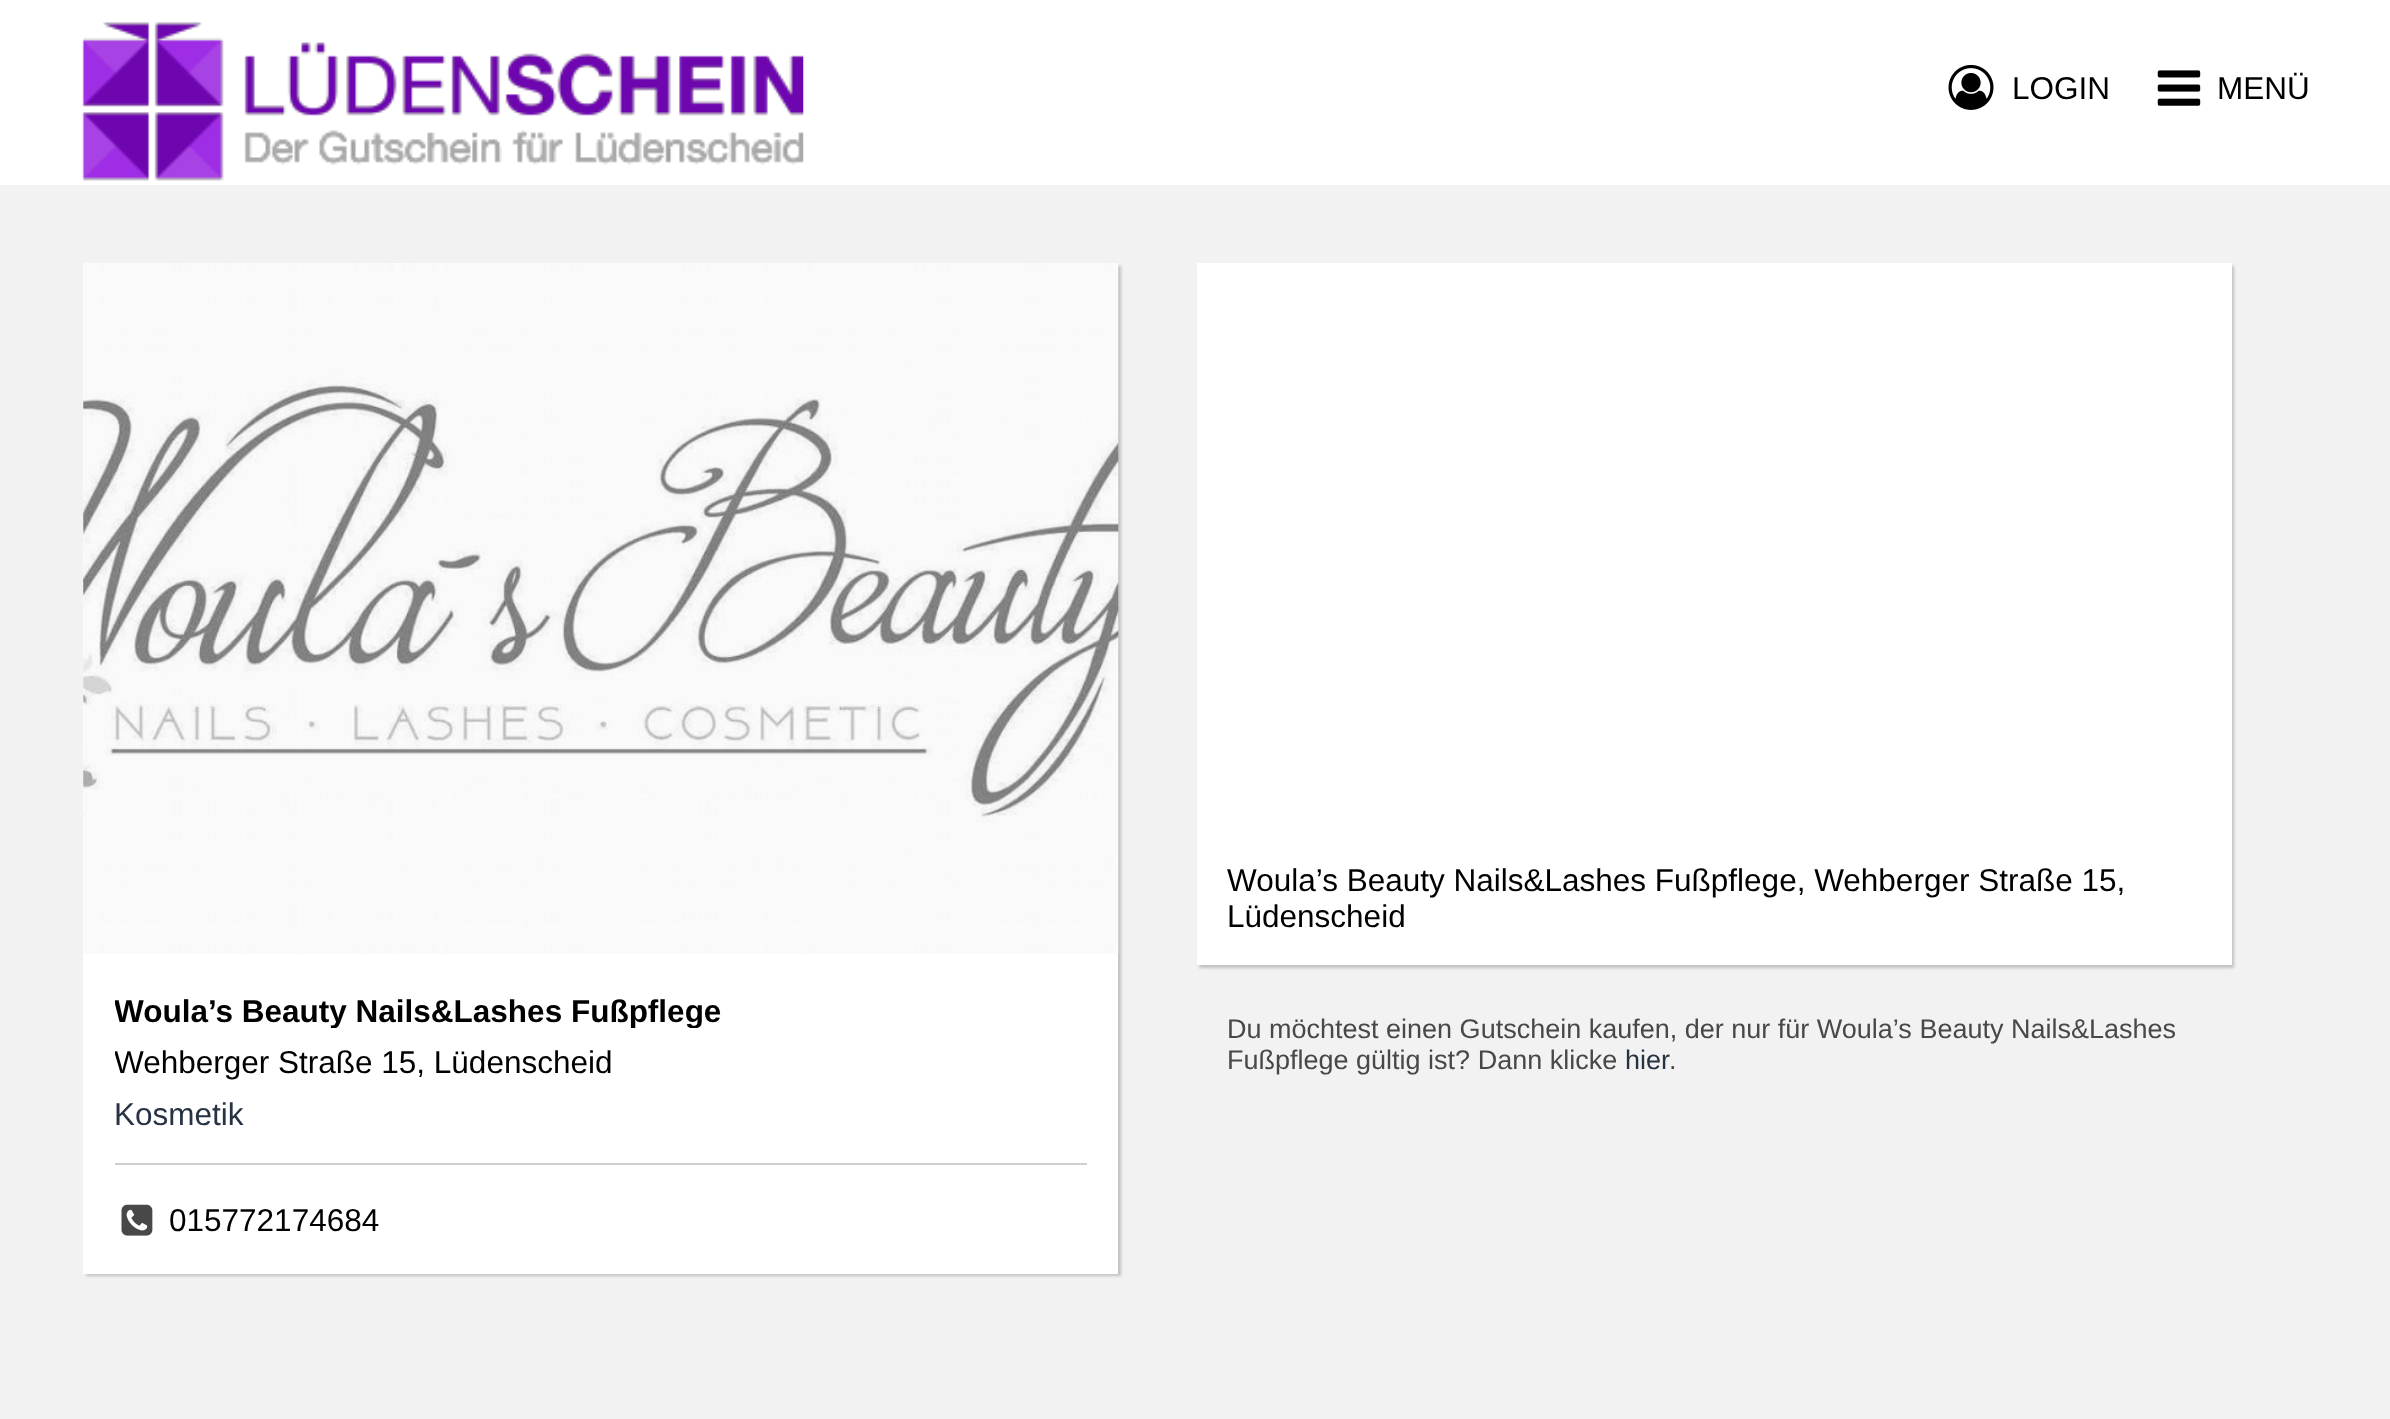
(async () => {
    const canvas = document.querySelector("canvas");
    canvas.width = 2390;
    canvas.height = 1419;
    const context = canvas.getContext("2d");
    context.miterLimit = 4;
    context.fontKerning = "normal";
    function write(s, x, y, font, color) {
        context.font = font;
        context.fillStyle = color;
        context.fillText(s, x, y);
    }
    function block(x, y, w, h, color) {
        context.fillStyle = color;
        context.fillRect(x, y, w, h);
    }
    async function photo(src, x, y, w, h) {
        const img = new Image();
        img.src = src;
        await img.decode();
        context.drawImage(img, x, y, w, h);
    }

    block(0, 0, 2390, 1419, "rgb(242, 242, 242)");
    block(0, 0, 2390, 185, "rgb(255, 255, 255)");
    await photo("media/1.png", 82, 22, 722, 159);
    await photo("media/2.png", 1948, 64, 46, 46);
    write("LOGIN", 2012, 99, "31.5px Liberation Sans", "rgb(0, 0, 0)");
    await photo("media/3.png", 2157, 70, 44, 36);
    write("MENÜ", 2217, 99, "31.5px Liberation Sans", "rgb(0, 0, 0)");
    context.fillStyle = "rgba(0, 0, 0, 0.2)";
    context.filter = "blur(1.5px)";
    context.beginPath();
    context.rect(1199, 266, 1035, 702);
    context.fill();
    context.filter = "none";
    block(1197, 263, 1035, 702, "rgb(255, 255, 255)");
    write("Woula’s Beauty Nails&Lashes Fußpflege, Wehberger Straße 15,", 1227, 891, "31.5px Liberation Sans", "rgb(0, 0, 0)");
    write("Lüdenscheid", 1227, 927, "31.5px Liberation Sans", "rgb(0, 0, 0)");
    write("Du möchtest einen Gutschein kaufen, der nur für Woula’s Beauty Nails&Lashes", 1227, 1038, "27px Liberation Sans", "rgb(71, 72, 71)");
    write("Fußpflege gültig ist? Dann klicke", 1227, 1069, "27px Liberation Sans", "rgb(71, 72, 71)");
    write("hier", 1625, 1069, "27px Liberation Sans", "rgb(39, 50, 67)");
    write(".", 1669, 1069, "27px Liberation Sans", "rgb(71, 72, 71)");
    context.fillStyle = "rgba(0, 0, 0, 0.2)";
    context.filter = "blur(1.5px)";
    context.beginPath();
    context.rect(86, 266, 1035, 1010);
    context.fill();
    context.filter = "none";
    block(83, 263, 1035, 1011, "rgb(255, 255, 255)");
    await photo("media/4.png", 83, 263, 1036, 691);
    context.save();
    context.beginPath();
    context.rect(115, 992, 972, 36);
    context.clip();
    write("Woula’s Beauty Nails&Lashes Fußpflege", 114, 1022, "bold 31.5px Liberation Sans", "rgb(0, 0, 0)");
    context.restore();
    context.save();
    context.beginPath();
    context.rect(115, 1044, 972, 36);
    context.clip();
    write("Wehberger Straße 15, Lüdenscheid", 114, 1073, "31.5px Liberation Sans", "rgb(0, 0, 0)");
    context.restore();
    write("Kosmetik", 114, 1125, "31.5px Liberation Sans", "rgb(39, 50, 67)");
    block(115, 1163, 972, 2, "rgb(206, 206, 206)");
    await photo("media/5.png", 121, 1204, 32, 32);
    write("015772174684", 169, 1231, "31.5px Liberation Sans", "rgb(0, 0, 0)");
})();
